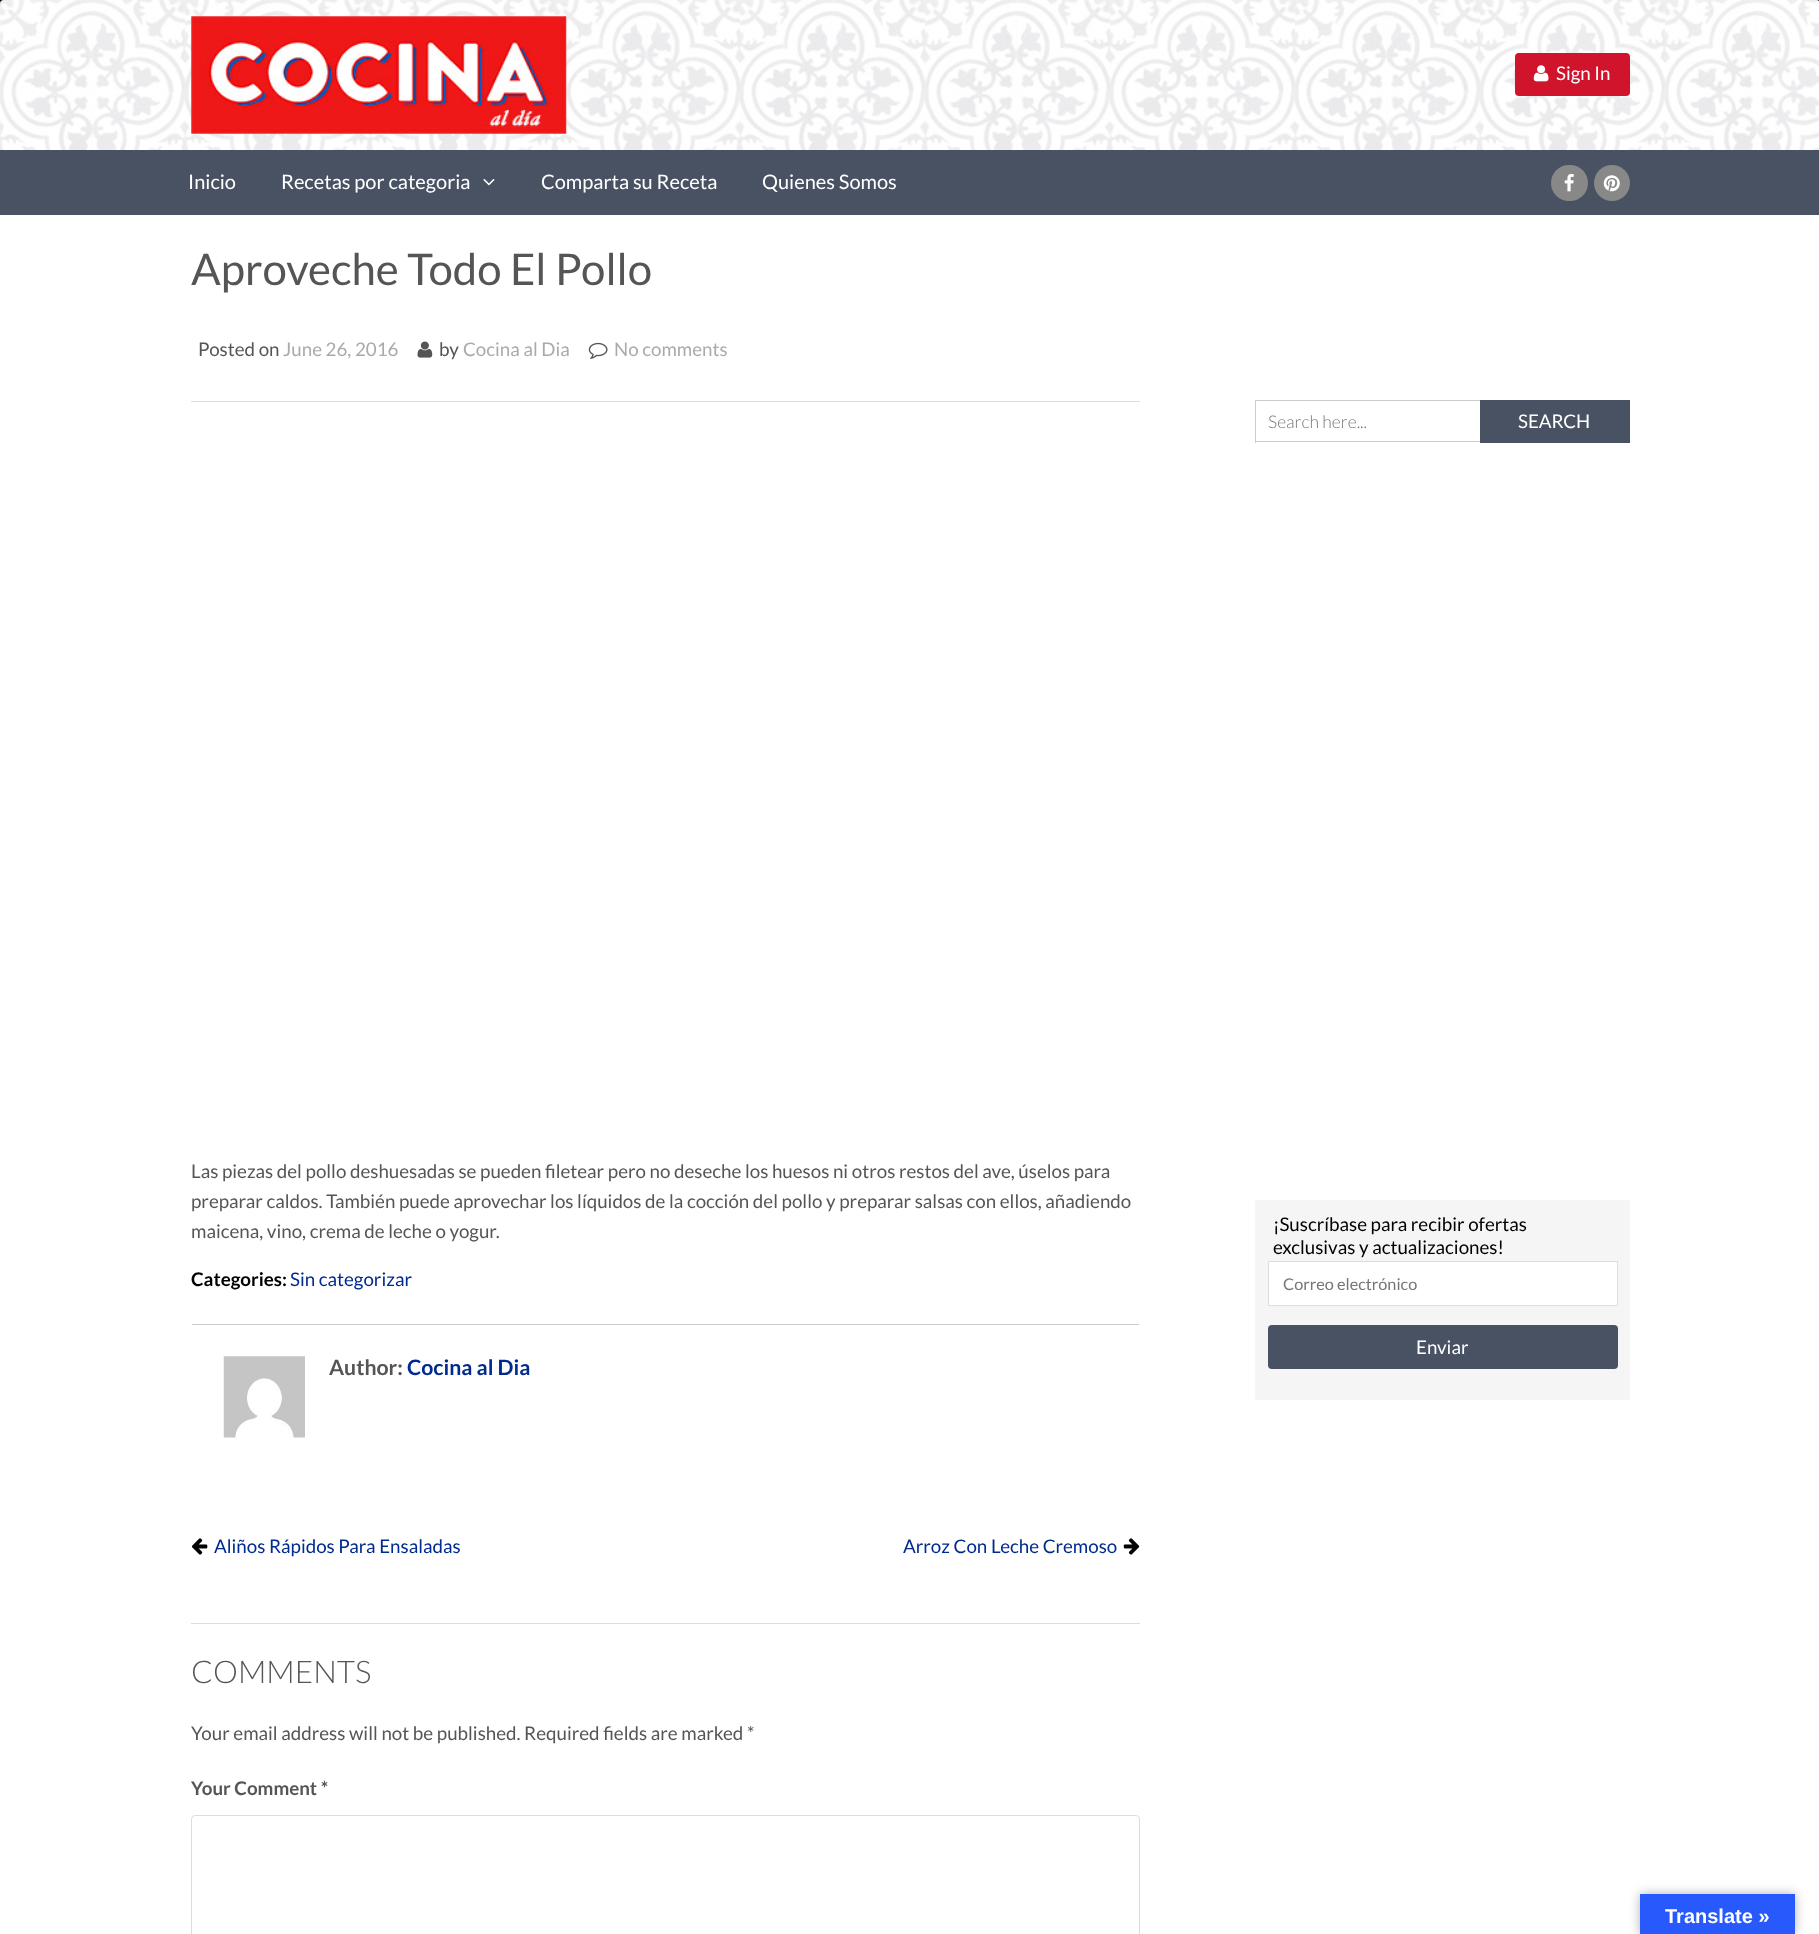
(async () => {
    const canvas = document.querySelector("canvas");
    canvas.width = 1819;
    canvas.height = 1934;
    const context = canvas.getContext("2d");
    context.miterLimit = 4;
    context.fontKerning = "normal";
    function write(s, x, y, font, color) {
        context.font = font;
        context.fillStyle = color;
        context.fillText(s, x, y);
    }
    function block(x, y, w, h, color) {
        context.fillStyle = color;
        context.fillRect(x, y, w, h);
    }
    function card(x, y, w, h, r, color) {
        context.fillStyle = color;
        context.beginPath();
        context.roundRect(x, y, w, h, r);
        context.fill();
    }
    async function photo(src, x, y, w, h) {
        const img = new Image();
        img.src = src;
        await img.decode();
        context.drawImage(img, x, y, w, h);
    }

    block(0, 0, 1819, 1934, "rgb(0, 0, 0)");
    await photo("media/1.png", 0, 0, 1819, 150);
    await photo("media/2.png", 191, 16, 376, 118);
    card(1515, 53, 115, 43, 4, "rgb(207, 20, 43)");
    await photo("media/3.png", 1533, 65, 16, 17);
    write("Sign In", 1556, 80, "18.75px Lato", "rgb(255, 255, 255)");
    block(0, 150, 1819, 65, "rgb(72, 82, 99)");
    write("Inicio", 188, 189, "20px Lato", "rgb(255, 255, 255)");
    write("Recetas por categoria", 281, 189, "20px Lato", "rgb(255, 255, 255)");
    await photo("media/4.png", 483, 178, 12, 8);
    write("Comparta su Receta", 541, 189, "20px Lato", "rgb(255, 255, 255)");
    write("Quienes Somos", 762, 189, "20px Lato", "rgb(255, 255, 255)");
    card(1551, 165, 37, 36, 18, "rgb(136, 136, 136)");
    await photo("media/5.png", 1564, 173, 10, 19);
    context.beginPath();
    context.arc(1612, 183, 18, 0, Math.PI * 2);
    context.fill();
    await photo("media/6.png", 1603, 175, 17, 17);
    block(0, 215, 1819, 1719, "rgb(255, 255, 255)");
    write("Aproveche Todo El Pollo", 191, 285, "43.75px Lato", "rgb(85, 85, 85)");
    block(191, 401, 949, 1, "rgb(221, 221, 221)");
    write("Posted on", 198, 356, "18.75px Lato", "rgb(85, 85, 85)");
    write("June 26, 2016", 283, 356, "18.75px Lato", "rgb(170, 170, 170)");
    await photo("media/7.png", 417, 341, 16, 17);
    write("by", 439, 356, "18.75px Lato", "rgb(85, 85, 85)");
    write("Cocina al Dia", 463, 356, "18.75px Lato", "rgb(170, 170, 170)");
    await photo("media/8.png", 588, 342, 20, 17);
    write("No comments", 614, 356, "18.75px Lato", "rgb(170, 170, 170)");
    write("Las piezas del pollo deshuesadas se pueden filetear pero no deseche los huesos ni otros restos del ave, úselos para", 191, 1178, "18.75px Lato", "rgb(85, 85, 85)");
    write("preparar caldos. También puede aprovechar los líquidos de la cocción del pollo y preparar salsas con ellos, añadiendo", 191, 1208, "18.75px Lato", "rgb(85, 85, 85)");
    write("maicena, vino, crema de leche o yogur.", 191, 1238, "18.75px Lato", "rgb(85, 85, 85)");
    write("Categories:", 191, 1286, "bold 18.75px Lato", "rgb(0, 0, 0)");
    write("Sin categorizar", 290, 1286, "18.75px Lato", "rgb(0, 42, 143)");
    block(191, 1324, 949, 1, "rgb(204, 204, 204)");
    block(1139, 1324, 1, 1, "rgb(255, 255, 255)");
    block(191, 1324, 1, 1, "rgb(255, 255, 255)");
    await photo("media/9.png", 223, 1356, 82, 82);
    write("Author:", 329, 1375, "bold 21.25px Lato", "rgb(85, 85, 85)");
    write("Cocina al Dia", 407, 1375, "bold 21.25px Lato", "rgb(0, 42, 143)");
    await photo("media/10.png", 191, 1538, 17, 17);
    write("Aliños Rápidos Para Ensaladas", 214, 1553, "18.75px Lato", "rgb(0, 42, 143)");
    write("Arroz Con Leche Cremoso", 903, 1553, "18.75px Lato", "rgb(0, 42, 143)");
    await photo("media/11.png", 1123, 1538, 17, 17);
    block(191, 1623, 949, 1, "rgb(221, 221, 221)");
    write("COMMENTS", 191, 1683, "300 31.25px Lato", "rgb(85, 85, 85)");
    write("Your email address will not be published. Required fields are marked *", 191, 1740, "18.75px Lato", "rgb(85, 85, 85)");
    write("Your Comment *", 191, 1795, "bold 18.75px Lato", "rgb(85, 85, 85)");
    context.beginPath();
    context.roundRect(191.5, 1815.5, 948, 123, 3.5);
    context.strokeStyle = "rgb(221, 221, 221)";
    context.stroke();
    block(1255, 400, 225, 1, "rgb(204, 204, 204)");
    block(1255, 441, 225, 1, "rgb(204, 204, 204)");
    block(1255, 400, 1, 43, "rgb(204, 204, 204)");
    write("Search here...", 1268, 428, "300 17.5px Lato", "rgb(117, 117, 117)");
    block(1480, 400, 150, 43, "rgb(72, 82, 99)");
    write("SEARCH", 1518, 428, "18.75px Lato", "rgb(255, 255, 255)");
    block(1255, 1200, 375, 200, "rgb(245, 245, 245)");
    write("¡Suscríbase para recibir ofertas", 1273, 1231, "18.75px Lato", "rgb(0, 0, 0)");
    write("exclusivas y actualizaciones!", 1273, 1254, "18.75px Lato", "rgb(0, 0, 0)");
    context.fillStyle = "rgb(255, 255, 255)";
    context.beginPath();
    context.rect(1268.5, 1261.5, 349, 44);
    context.fill();
    context.stroke();
    write("Correo electrónico", 1283, 1290, "16.25px Lato", "rgb(117, 117, 117)");
    card(1268, 1325, 350, 44, 4, "rgb(72, 82, 99)");
    write("Enviar", 1416, 1354, "18.75px Lato", "rgb(255, 255, 255)");
    context.fillStyle = "rgba(0, 0, 0, 0.3)";
    context.filter = "blur(5.5px)";
    context.beginPath();
    context.rect(1640, 1894, 155, 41);
    context.fill();
    context.filter = "none";
    block(1640, 1894, 155, 40, "rgb(40, 89, 252)");
    write("Translate »", 1665, 1923, "bold 20px Liberation Sans", "rgb(255, 255, 255)");
})();
